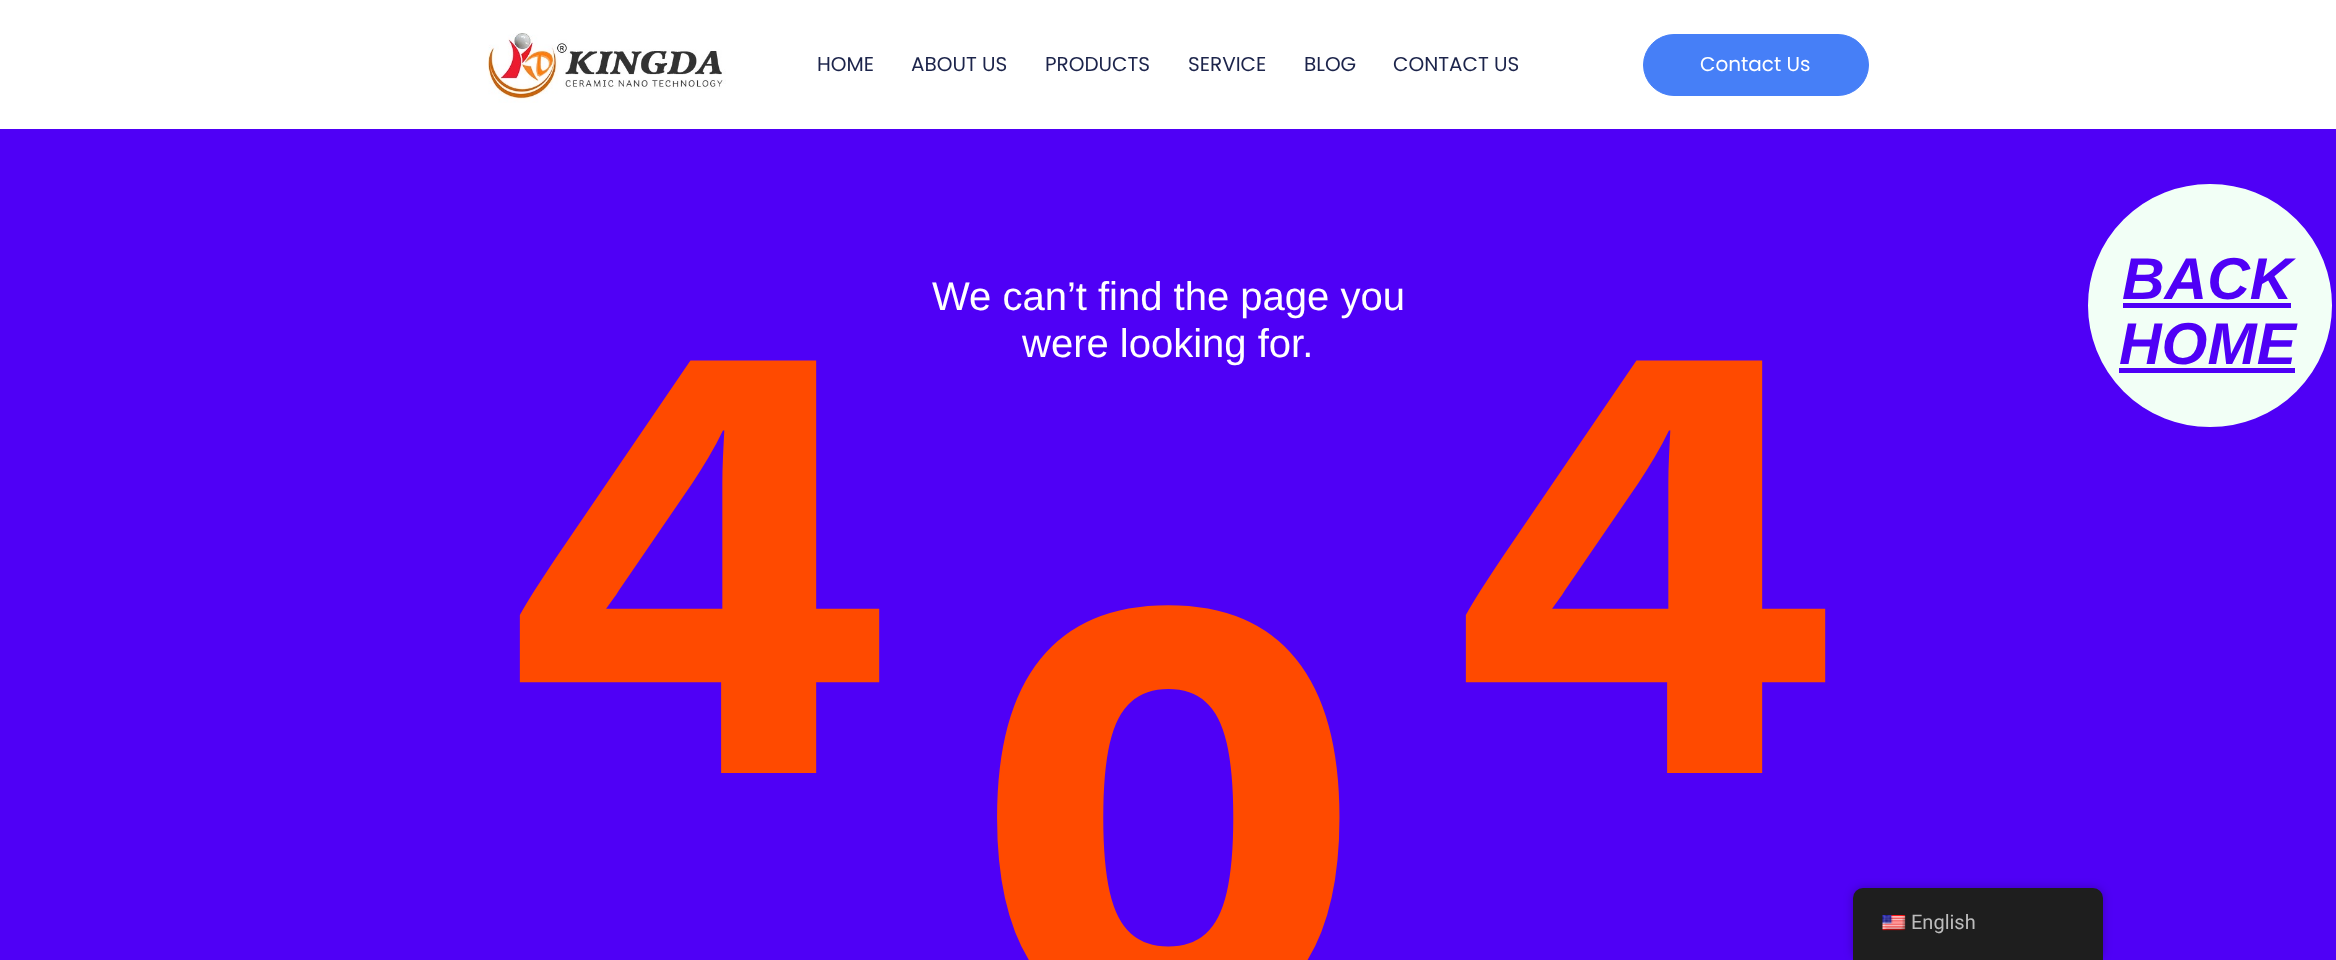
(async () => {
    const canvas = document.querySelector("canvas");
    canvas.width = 2336;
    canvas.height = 960;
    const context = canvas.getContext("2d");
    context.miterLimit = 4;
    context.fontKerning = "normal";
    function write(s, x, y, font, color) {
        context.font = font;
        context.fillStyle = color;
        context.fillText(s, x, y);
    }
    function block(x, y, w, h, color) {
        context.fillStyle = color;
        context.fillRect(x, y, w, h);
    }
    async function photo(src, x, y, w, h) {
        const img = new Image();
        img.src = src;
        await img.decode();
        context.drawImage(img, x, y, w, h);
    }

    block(0, 0, 2336, 960, "rgb(255, 255, 255)");
    await photo("media/1.png", 488, 33, 238, 70);
    write("HOME", 817, 71, "20px Poppins", "rgb(28, 36, 75)");
    write("ABOUT US", 911, 71, "20px Poppins", "rgb(28, 36, 75)");
    write("PRODUCTS", 1045, 71, "20px Poppins", "rgb(28, 36, 75)");
    write("SERVICE", 1188, 71, "20px Poppins", "rgb(28, 36, 75)");
    write("BLOG", 1304, 71, "20px Poppins", "rgb(28, 36, 75)");
    write("CONTACT US", 1393, 71, "20px Poppins", "rgb(28, 36, 75)");
    context.fillStyle = "rgb(70, 127, 247)";
    context.beginPath();
    context.roundRect(1643.5, 34.5, 225, 61, 30.5);
    context.fill();
    context.strokeStyle = "rgb(70, 127, 247)";
    context.stroke();
    write("Contact Us", 1700, 71, "20px Poppins", "rgb(255, 255, 255)");
    block(0, 129, 2336, 831, "rgb(79, 0, 246)");
    write("We can’t find the page you", 932, 310, "40px Liberation Sans", "rgb(255, 255, 255)");
    write("were looking for.", 1022, 357, "40px Liberation Sans", "rgb(255, 255, 255)");
    context.fillStyle = "rgb(242, 255, 246)";
    context.beginPath();
    context.roundRect(2086, 182, 248, 247, 123.5);
    context.fill();
    context.strokeStyle = "rgb(79, 0, 246)";
    context.lineWidth = 4;
    context.stroke();
    write("BACK", 2122, 299, "italic bold 59px Liberation Sans", "rgb(79, 0, 246)");
    block(2123, 303, 168, 5, "rgb(79, 0, 246)");
    write("HOME", 2119, 364, "italic bold 59px Liberation Sans", "rgb(79, 0, 246)");
    block(2119, 368, 176, 5, "rgb(79, 0, 246)");
    write("4", 493, 773, "bold 625px Work Sans", "rgb(255, 74, 0)");
    write("0", 967, 1024, "bold 625px Work Sans", "rgb(255, 74, 0)");
    write("4", 1439, 773, "bold 625px Work Sans", "rgb(255, 74, 0)");
    context.fillStyle = "rgba(0, 0, 0, 0.25)";
    context.filter = "blur(5px)";
    context.beginPath();
    context.roundRect(1853, 888, 250, 72, 10);
    context.fill();
    context.filter = "none";
    context.fillStyle = "rgb(30, 30, 30)";
    context.beginPath();
    context.roundRect(1853, 888, 250, 72, [10, 10, 0, 0]);
    context.fill();
    await photo("media/2.png", 1882, 915, 24, 16);
    write("English", 1911, 929, "20px Roboto", "rgb(189, 189, 189)");
})();
